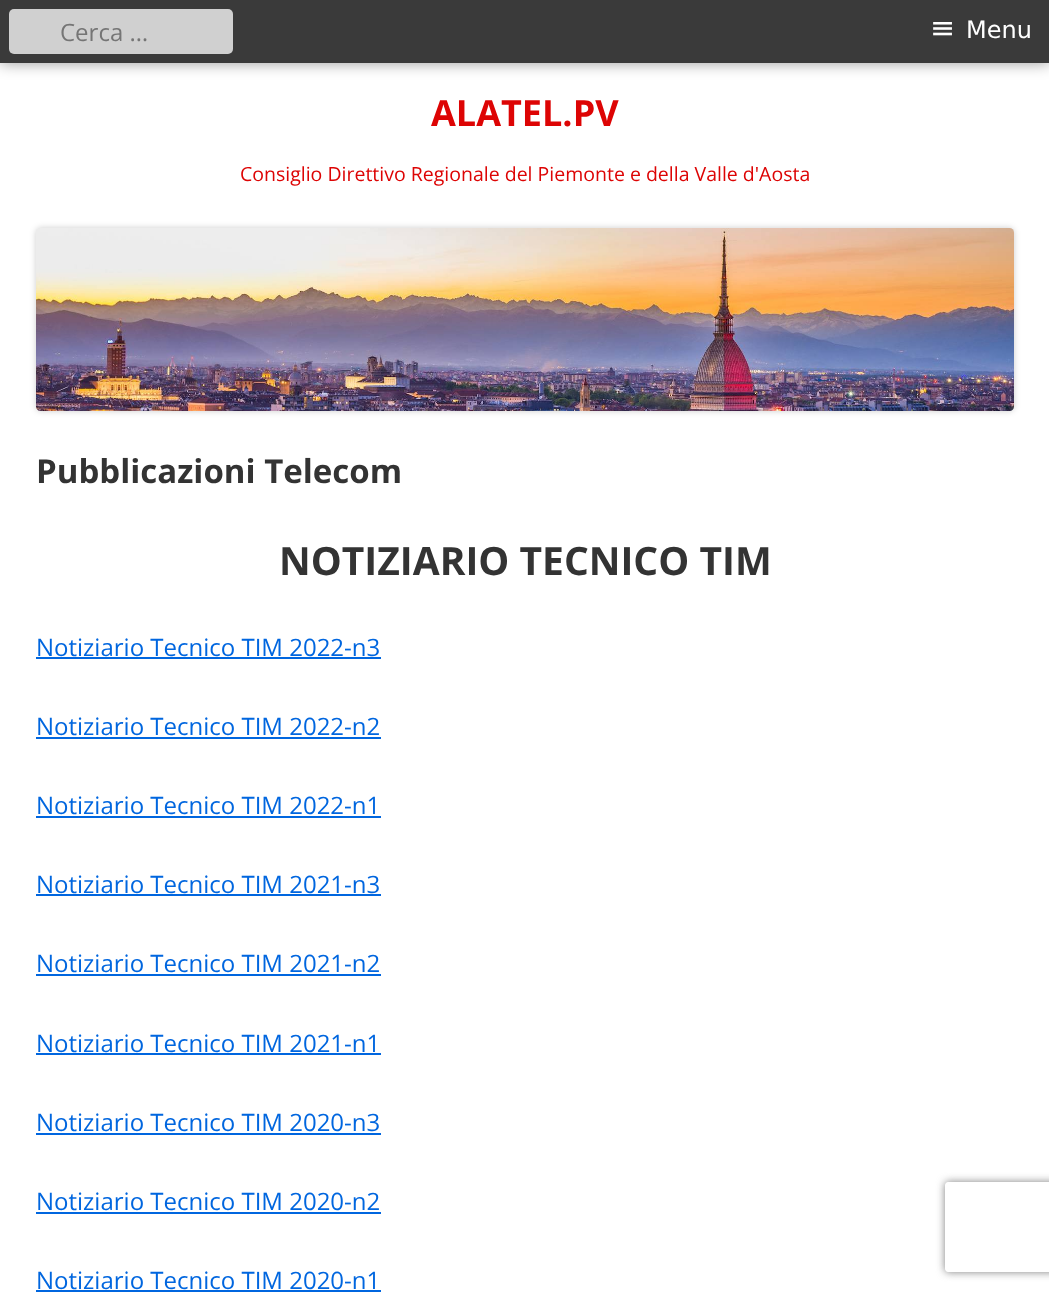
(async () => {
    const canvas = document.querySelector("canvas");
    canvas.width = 1049;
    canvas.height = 1308;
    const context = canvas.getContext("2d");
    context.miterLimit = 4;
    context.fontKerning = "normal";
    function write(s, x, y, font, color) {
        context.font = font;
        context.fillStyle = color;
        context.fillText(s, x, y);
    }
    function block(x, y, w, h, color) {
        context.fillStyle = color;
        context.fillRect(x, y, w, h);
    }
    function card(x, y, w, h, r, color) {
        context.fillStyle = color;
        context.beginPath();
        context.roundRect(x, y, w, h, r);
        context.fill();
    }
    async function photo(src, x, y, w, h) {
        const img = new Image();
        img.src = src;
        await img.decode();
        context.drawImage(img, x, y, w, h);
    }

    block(0, 0, 1049, 1308, "rgb(255, 255, 255)");
    context.fillStyle = "rgba(0, 0, 0, 0.4)";
    context.filter = "blur(7.5px)";
    context.beginPath();
    context.rect(0, 0, 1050, 63);
    context.fill();
    context.filter = "none";
    block(0, 0, 1049, 63, "rgb(58, 58, 58)");
    card(9, 9, 224, 45, 5, "rgb(208, 208, 208)");
    write("Cerca …", 60, 41, "24px Open Sans", "rgb(117, 117, 117)");
    write("≡", 930, 38, "30px DejaVu Sans", "rgb(255, 255, 255)");
    write("Menu", 966, 38, "24px DejaVu Sans", "rgb(255, 255, 255)");
    write("ALATEL.PV", 431, 126, "bold 36px Open Sans", "rgb(221, 4, 4)");
    write("Consiglio Direttivo Regionale del Piemonte e della Valle d'Aosta", 240, 181, "19.5px Open Sans", "rgb(221, 4, 4)");
    context.fillStyle = "rgba(0, 0, 0, 0.2)";
    context.filter = "blur(3px)";
    context.beginPath();
    context.roundRect(36, 228, 978, 183, 5);
    context.fill();
    context.filter = "none";
    await photo("media/1.png", 36, 228, 978, 183);
    write("Pubblicazioni Telecom", 36, 483, "bold 33px Open Sans", "rgb(51, 51, 51)");
    write("NOTIZIARIO TECNICO TIM", 279, 575, "bold 39px Open Sans", "rgb(51, 51, 51)");
    write("Notiziario Tecnico TIM 2022-n3", 36, 656, "24px Open Sans", "rgb(0, 102, 223)");
    block(36, 657, 345, 2, "rgb(0, 102, 223)");
    write("Notiziario Tecnico TIM 2022-n2", 36, 735, "24px Open Sans", "rgb(0, 102, 223)");
    block(36, 737, 345, 2, "rgb(0, 102, 223)");
    write("Notiziario Tecnico TIM 2022-n1", 36, 814, "24px Open Sans", "rgb(0, 102, 223)");
    block(36, 816, 345, 2, "rgb(0, 102, 223)");
    write("Notiziario Tecnico TIM 2021-n3", 36, 893, "24px Open Sans", "rgb(0, 102, 223)");
    block(36, 894, 345, 2, "rgb(0, 102, 223)");
    write("Notiziario Tecnico TIM 2021-n2", 36, 972, "24px Open Sans", "rgb(0, 102, 223)");
    block(36, 974, 345, 2, "rgb(0, 102, 223)");
    write("Notiziario Tecnico TIM 2021-n1", 36, 1052, "24px Open Sans", "rgb(0, 102, 223)");
    block(36, 1053, 345, 2, "rgb(0, 102, 223)");
    write("Notiziario Tecnico TIM 2020-n3", 36, 1131, "24px Open Sans", "rgb(0, 102, 223)");
    block(36, 1133, 345, 2, "rgb(0, 102, 223)");
    write("Notiziario Tecnico TIM 2020-n2", 36, 1210, "24px Open Sans", "rgb(0, 102, 223)");
    block(36, 1212, 345, 2, "rgb(0, 102, 223)");
    write("Notiziario Tecnico TIM 2020-n1", 36, 1289, "24px Open Sans", "rgb(0, 102, 223)");
    block(36, 1290, 345, 2, "rgb(0, 102, 223)");
    context.save();
    context.beginPath();
    context.moveTo(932, 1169);
    context.lineTo(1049, 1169);
    context.lineTo(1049, 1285);
    context.lineTo(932, 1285);
    context.closePath();
    context.moveTo(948, 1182);
    context.lineTo(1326, 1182);
    context.bezierCurveTo(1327.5, 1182, 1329, 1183.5, 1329, 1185);
    context.lineTo(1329, 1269);
    context.bezierCurveTo(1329, 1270.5, 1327.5, 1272, 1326, 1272);
    context.lineTo(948, 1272);
    context.bezierCurveTo(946.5, 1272, 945, 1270.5, 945, 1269);
    context.lineTo(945, 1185);
    context.bezierCurveTo(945, 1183.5, 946.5, 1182, 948, 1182);
    context.closePath();
    context.clip("evenodd");
    context.fillStyle = "rgb(128, 128, 128)";
    context.filter = "blur(4px)";
    context.beginPath();
    context.roundRect(945, 1182, 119, 90, 3);
    context.fill();
    context.filter = "none";
    context.restore();
})();
